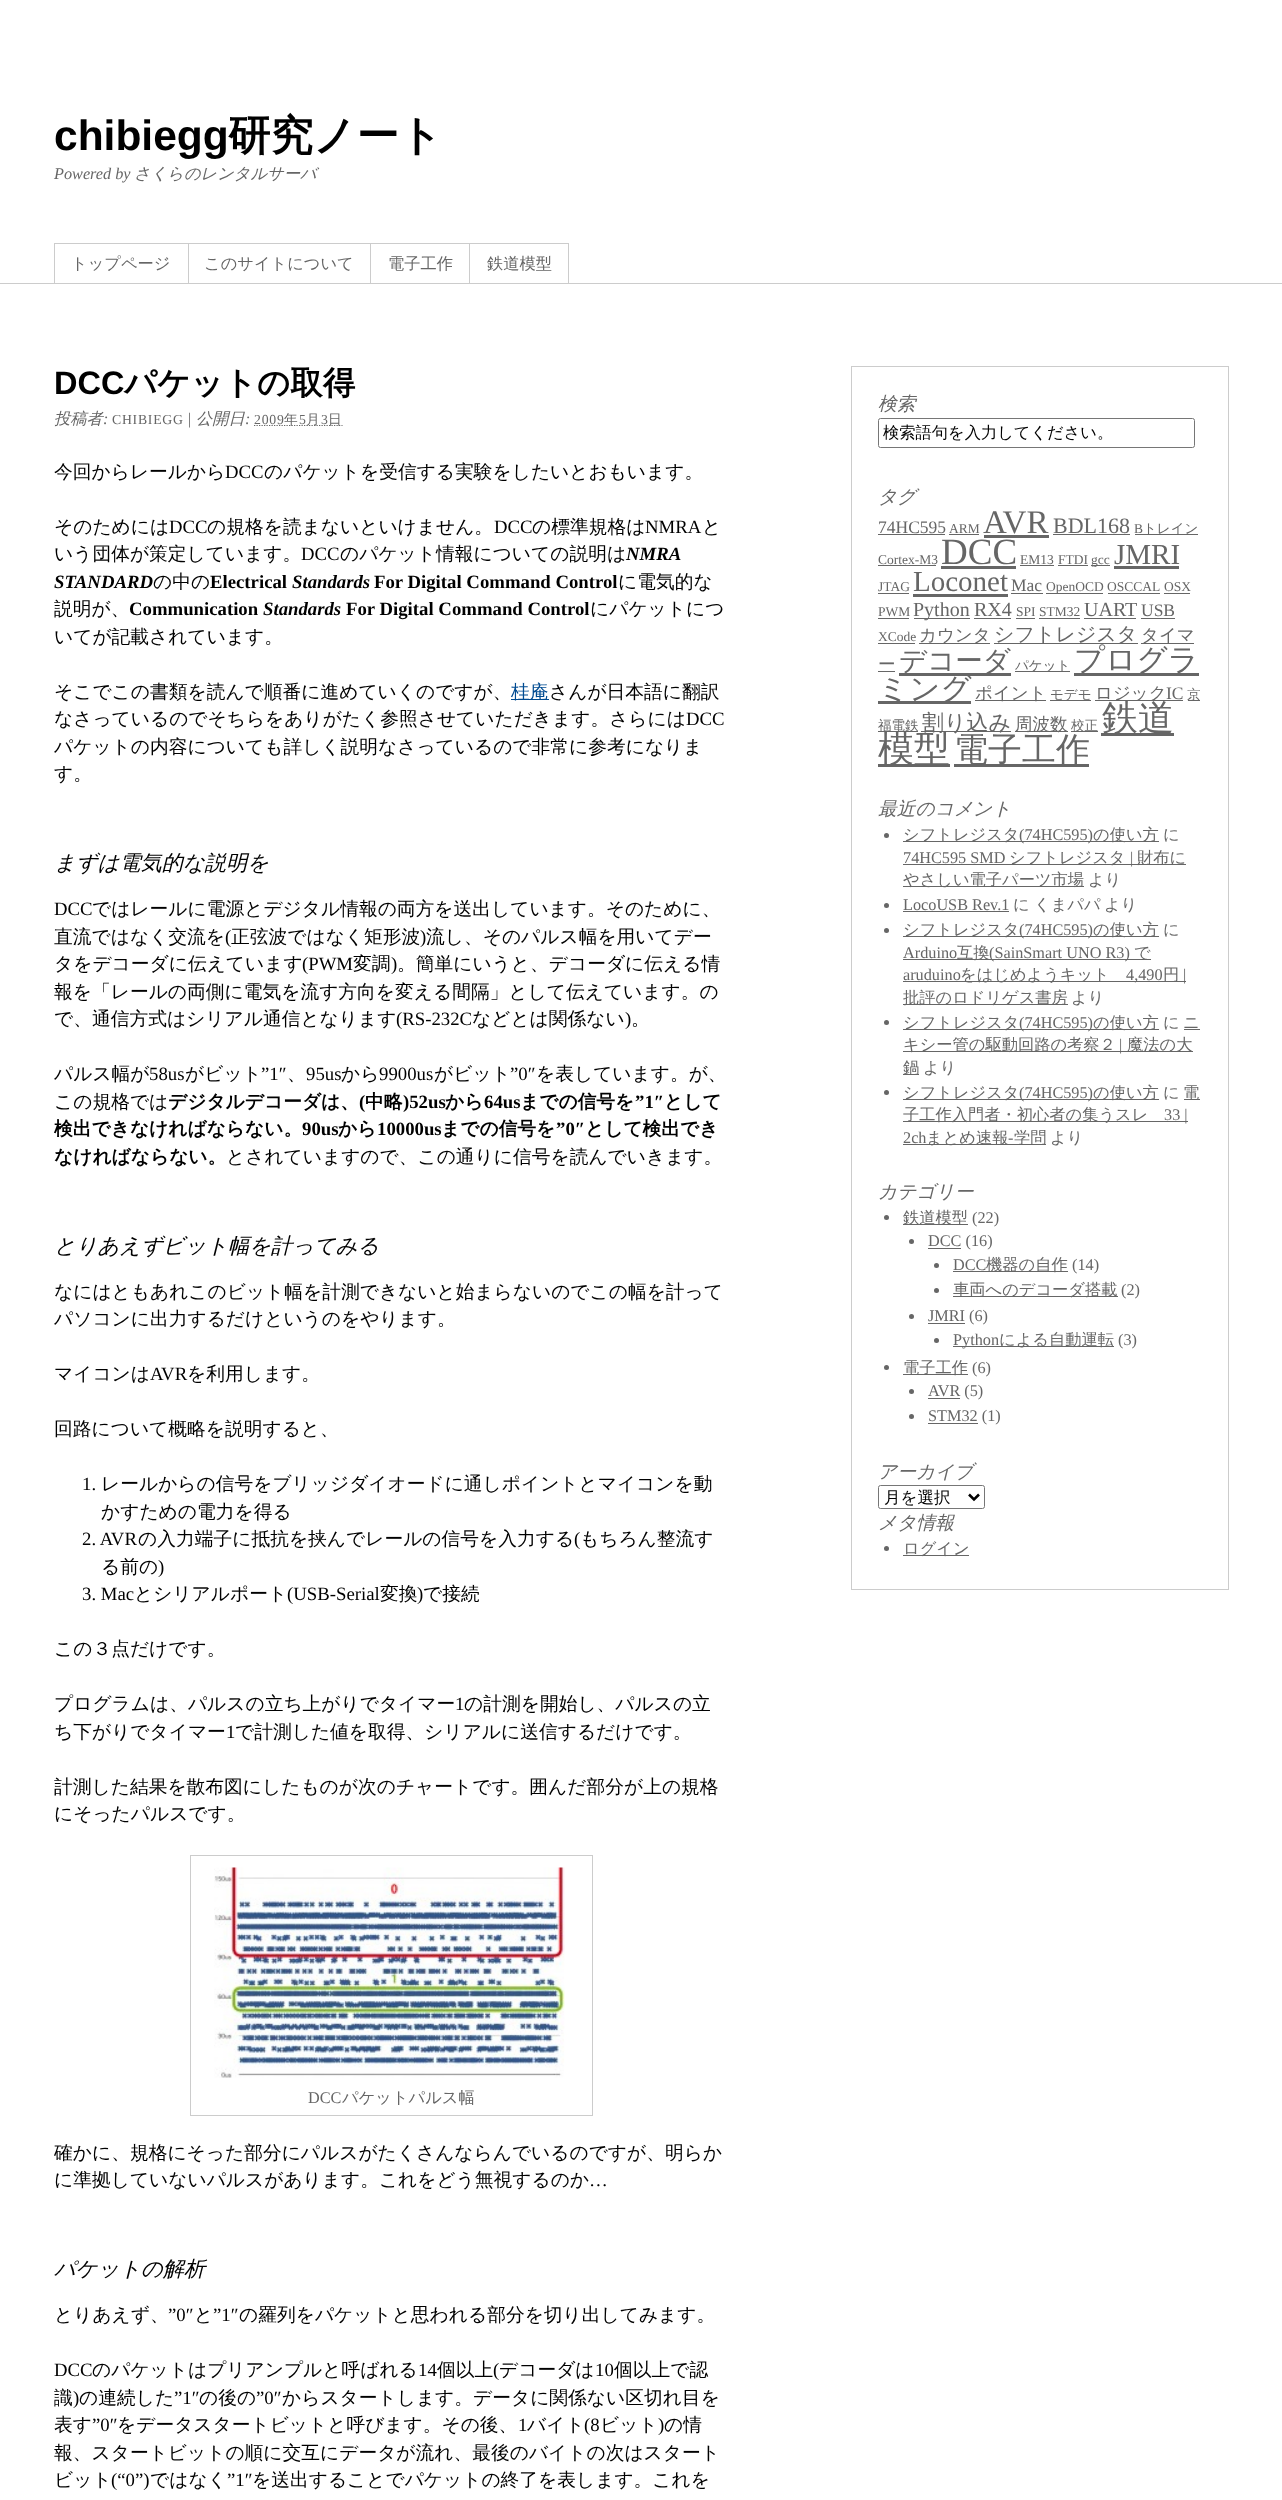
(async () => {
    const canvas = document.querySelector("canvas");
    canvas.width = 1282;
    canvas.height = 2500;
    const context = canvas.getContext("2d");
    context.miterLimit = 4;
    context.fontKerning = "normal";
    function write(s, x, y, font, color) {
        context.font = font;
        context.fillStyle = color;
        context.fillText(s, x, y);
    }
    function block(x, y, w, h, color) {
        context.fillStyle = color;
        context.fillRect(x, y, w, h);
    }
    async function photo(src, x, y, w, h) {
        const img = new Image();
        img.src = src;
        await img.decode();
        context.drawImage(img, x, y, w, h);
    }

    block(0, 0, 1282, 2500, "rgb(255, 255, 255)");
    write("chibiegg", 54, 150, "bold 42.5px Liberation Sans", "rgb(0, 0, 0)");
    write("研究ノート", 228, 150, "bold 42.5px WenQuanYi Zen Hei", "rgb(0, 0, 0)");
    write("Powered by", 54, 179, "italic 16.25px Liberation Serif", "rgb(102, 102, 102)");
    write("さくらのレンタルサーバ", 134, 179, "italic 500 16.25px WenQuanYi Zen Hei", "rgb(102, 102, 102)");
    block(0, 283, 1282, 1, "rgb(204, 204, 204)");
    context.strokeStyle = "rgb(204, 204, 204)";
    context.strokeRect(54.5, 243.5, 134, 40);
    write("トップページ", 71, 269, "500 16.25px WenQuanYi Zen Hei", "rgb(102, 102, 102)");
    context.strokeRect(188.5, 243.5, 182, 40);
    write("このサイトについて", 204, 269, "500 16.25px WenQuanYi Zen Hei", "rgb(102, 102, 102)");
    context.strokeRect(370.5, 243.5, 99, 40);
    write("電子工作", 388, 269, "500 16.25px WenQuanYi Zen Hei", "rgb(102, 102, 102)");
    context.strokeRect(469.5, 243.5, 99, 40);
    write("鉄道模型", 487, 269, "500 16.25px WenQuanYi Zen Hei", "rgb(102, 102, 102)");
    write("DCC", 54, 394, "bold 32.5px Liberation Sans", "rgb(0, 0, 0)");
    write("パケットの取得", 124, 394, "bold 32.5px WenQuanYi Zen Hei", "rgb(0, 0, 0)");
    write("投稿者", 54, 424, "italic 500 16.25px WenQuanYi Zen Hei", "rgb(102, 102, 102)");
    write(":", 103, 424, "italic 16.25px Liberation Serif", "rgb(102, 102, 102)");
    context.letterSpacing = "0.75px";
    write("CHIBIEGG", 112, 424, "13.75px Liberation Serif", "rgb(102, 102, 102)");
    context.letterSpacing = "0px";
    write("|", 187, 424, "italic 16.25px Liberation Serif", "rgb(102, 102, 102)");
    write("公開日", 196, 424, "italic 500 16.25px WenQuanYi Zen Hei", "rgb(102, 102, 102)");
    write(":", 245, 424, "italic 16.25px Liberation Serif", "rgb(102, 102, 102)");
    context.beginPath();
    context.moveTo(254, 425.5);
    context.lineTo(342.5, 425.5);
    context.strokeStyle = "rgb(102, 102, 102)";
    context.lineWidth = 1.2;
    context.setLineDash([1.25, 1.25]);
    context.stroke();
    context.letterSpacing = "0.75px";
    write("2009", 254, 424, "13.75px Liberation Serif", "rgb(102, 102, 102)");
    write("年", 284, 424, "500 13.75px WenQuanYi Zen Hei", "rgb(102, 102, 102)");
    write("5", 299, 424, "13.75px Liberation Serif", "rgb(102, 102, 102)");
    write("月", 306, 424, "500 13.75px WenQuanYi Zen Hei", "rgb(102, 102, 102)");
    write("3", 321, 424, "13.75px Liberation Serif", "rgb(102, 102, 102)");
    write("日", 328, 424, "500 13.75px WenQuanYi Zen Hei", "rgb(102, 102, 102)");
    context.letterSpacing = "0px";
    write("今回からレールから", 54, 478, "500 18.75px WenQuanYi Zen Hei", "rgb(0, 0, 0)");
    write("DCC", 225, 478, "18.75px Liberation Serif", "rgb(0, 0, 0)");
    write("のパケットを受信する実験をしたいとおもいます。", 264, 478, "500 18.75px WenQuanYi Zen Hei", "rgb(0, 0, 0)");
    write("そのためには", 54, 533, "500 18.75px WenQuanYi Zen Hei", "rgb(0, 0, 0)");
    write("DCC", 169, 533, "18.75px Liberation Serif", "rgb(0, 0, 0)");
    write("の規格を読まないといけません。", 207, 533, "500 18.75px WenQuanYi Zen Hei", "rgb(0, 0, 0)");
    write("DCC", 494, 533, "18.75px Liberation Serif", "rgb(0, 0, 0)");
    write("の標準規格は", 532, 533, "500 18.75px WenQuanYi Zen Hei", "rgb(0, 0, 0)");
    write("NMRA", 645, 533, "18.75px Liberation Serif", "rgb(0, 0, 0)");
    write("と", 702, 533, "500 18.75px WenQuanYi Zen Hei", "rgb(0, 0, 0)");
    write("いう団体が策定しています。", 54, 560, "500 18.75px WenQuanYi Zen Hei", "rgb(0, 0, 0)");
    write("DCC", 301, 560, "18.75px Liberation Serif", "rgb(0, 0, 0)");
    write("のパケット情報についての説明は", 340, 560, "500 18.75px WenQuanYi Zen Hei", "rgb(0, 0, 0)");
    write("NMRA", 626, 560, "italic bold 18.75px Liberation Serif", "rgb(0, 0, 0)");
    write("STANDARD", 54, 588, "italic bold 18.75px Liberation Serif", "rgb(0, 0, 0)");
    write("の中の", 153, 588, "500 18.75px WenQuanYi Zen Hei", "rgb(0, 0, 0)");
    write("Electrical", 210, 588, "bold 18.75px Liberation Serif", "rgb(0, 0, 0)");
    write("Standards", 292, 588, "italic bold 18.75px Liberation Serif", "rgb(0, 0, 0)");
    write("For Digital Command Control", 374, 588, "bold 18.75px Liberation Serif", "rgb(0, 0, 0)");
    write("に電気的な", 618, 588, "500 18.75px WenQuanYi Zen Hei", "rgb(0, 0, 0)");
    write("説明が、", 54, 615, "500 18.75px WenQuanYi Zen Hei", "rgb(0, 0, 0)");
    write("Communication", 129, 615, "bold 18.75px Liberation Serif", "rgb(0, 0, 0)");
    write("Standards", 263, 615, "italic bold 18.75px Liberation Serif", "rgb(0, 0, 0)");
    write("For Digital Command Control", 346, 615, "bold 18.75px Liberation Serif", "rgb(0, 0, 0)");
    write("にパケットにつ", 590, 615, "500 18.75px WenQuanYi Zen Hei", "rgb(0, 0, 0)");
    write("いてが記載されています。", 54, 643, "500 18.75px WenQuanYi Zen Hei", "rgb(0, 0, 0)");
    write("そこでこの書類を読んで順番に進めていくのですが、", 54, 698, "500 18.75px WenQuanYi Zen Hei", "rgb(0, 0, 0)");
    block(511, 699, 38, 1, "rgb(0, 75, 145)");
    write("桂庵", 511, 698, "500 18.75px WenQuanYi Zen Hei", "rgb(0, 75, 145)");
    write("さんが日本語に翻訳", 549, 698, "500 18.75px WenQuanYi Zen Hei", "rgb(0, 0, 0)");
    write("なさっているのでそちらをありがたく参照させていただきます。さらには", 54, 725, "500 18.75px WenQuanYi Zen Hei", "rgb(0, 0, 0)");
    write("DCC", 686, 725, "18.75px Liberation Serif", "rgb(0, 0, 0)");
    write("パケットの内容についても詳しく説明なさっているので非常に参考になりま", 54, 753, "500 18.75px WenQuanYi Zen Hei", "rgb(0, 0, 0)");
    write("す。", 54, 780, "500 18.75px WenQuanYi Zen Hei", "rgb(0, 0, 0)");
    write("まずは電気的な説明を", 54, 870, "italic 500 21.25px WenQuanYi Zen Hei", "rgb(0, 0, 0)");
    write("DCC", 54, 915, "18.75px Liberation Serif", "rgb(0, 0, 0)");
    write("ではレールに電源とデジタル情報の両方を送出しています。そのために、", 92, 915, "500 18.75px WenQuanYi Zen Hei", "rgb(0, 0, 0)");
    write("直流ではなく交流を", 54, 943, "500 18.75px WenQuanYi Zen Hei", "rgb(0, 0, 0)");
    write("(", 225, 943, "18.75px Liberation Serif", "rgb(0, 0, 0)");
    write("正弦波ではなく矩形波", 231, 943, "500 18.75px WenQuanYi Zen Hei", "rgb(0, 0, 0)");
    write(")", 420, 943, "18.75px Liberation Serif", "rgb(0, 0, 0)");
    write("流し、そのパルス幅を用いてデー", 426, 943, "500 18.75px WenQuanYi Zen Hei", "rgb(0, 0, 0)");
    write("タをデコーダに伝えています", 54, 970, "500 18.75px WenQuanYi Zen Hei", "rgb(0, 0, 0)");
    write("(PWM", 302, 970, "18.75px Liberation Serif", "rgb(0, 0, 0)");
    write("変調", 353, 970, "500 18.75px WenQuanYi Zen Hei", "rgb(0, 0, 0)");
    write(")", 391, 970, "18.75px Liberation Serif", "rgb(0, 0, 0)");
    write("。簡単にいうと、デコーダに伝える情", 397, 970, "500 18.75px WenQuanYi Zen Hei", "rgb(0, 0, 0)");
    write("報を「レールの両側に電気を流す方向を変える間隔」として伝えています。の", 54, 998, "500 18.75px WenQuanYi Zen Hei", "rgb(0, 0, 0)");
    write("で、通信方式はシリアル通信となります", 54, 1025, "500 18.75px WenQuanYi Zen Hei", "rgb(0, 0, 0)");
    write("(RS-232C", 396, 1025, "18.75px Liberation Serif", "rgb(0, 0, 0)");
    write("などとは関係ない", 472, 1025, "500 18.75px WenQuanYi Zen Hei", "rgb(0, 0, 0)");
    write(")", 625, 1025, "18.75px Liberation Serif", "rgb(0, 0, 0)");
    write("。", 631, 1025, "500 18.75px WenQuanYi Zen Hei", "rgb(0, 0, 0)");
    write("パルス幅が", 54, 1080, "500 18.75px WenQuanYi Zen Hei", "rgb(0, 0, 0)");
    write("58us", 149, 1080, "18.75px Liberation Serif", "rgb(0, 0, 0)");
    write("がビット", 185, 1080, "500 18.75px WenQuanYi Zen Hei", "rgb(0, 0, 0)");
    write("”1″", 261, 1080, "18.75px Liberation Serif", "rgb(0, 0, 0)");
    write("、", 287, 1080, "500 18.75px WenQuanYi Zen Hei", "rgb(0, 0, 0)");
    write("95us", 306, 1080, "18.75px Liberation Serif", "rgb(0, 0, 0)");
    write("から", 341, 1080, "500 18.75px WenQuanYi Zen Hei", "rgb(0, 0, 0)");
    write("9900us", 379, 1080, "18.75px Liberation Serif", "rgb(0, 0, 0)");
    write("がビット", 434, 1080, "500 18.75px WenQuanYi Zen Hei", "rgb(0, 0, 0)");
    write("”0″", 510, 1080, "18.75px Liberation Serif", "rgb(0, 0, 0)");
    write("を表しています。が、", 536, 1080, "500 18.75px WenQuanYi Zen Hei", "rgb(0, 0, 0)");
    write("この規格では", 54, 1108, "500 18.75px WenQuanYi Zen Hei", "rgb(0, 0, 0)");
    write("デジタルデコーダは、", 168, 1108, "bold 18.75px WenQuanYi Zen Hei", "rgb(0, 0, 0)");
    write("(", 359, 1108, "bold 18.75px Liberation Serif", "rgb(0, 0, 0)");
    write("中略", 365, 1108, "bold 18.75px WenQuanYi Zen Hei", "rgb(0, 0, 0)");
    write(")52us", 403, 1108, "bold 18.75px Liberation Serif", "rgb(0, 0, 0)");
    write("から", 445, 1108, "bold 18.75px WenQuanYi Zen Hei", "rgb(0, 0, 0)");
    write("64us", 484, 1108, "bold 18.75px Liberation Serif", "rgb(0, 0, 0)");
    write("までの信号を", 520, 1108, "bold 18.75px WenQuanYi Zen Hei", "rgb(0, 0, 0)");
    write("”1″", 635, 1108, "bold 18.75px Liberation Serif", "rgb(0, 0, 0)");
    write("として", 664, 1108, "bold 18.75px WenQuanYi Zen Hei", "rgb(0, 0, 0)");
    write("検出できなければならない。", 54, 1135, "bold 18.75px WenQuanYi Zen Hei", "rgb(0, 0, 0)");
    write("90us", 302, 1135, "bold 18.75px Liberation Serif", "rgb(0, 0, 0)");
    write("から", 338, 1135, "bold 18.75px WenQuanYi Zen Hei", "rgb(0, 0, 0)");
    write("10000us", 377, 1135, "bold 18.75px Liberation Serif", "rgb(0, 0, 0)");
    write("までの信号を", 441, 1135, "bold 18.75px WenQuanYi Zen Hei", "rgb(0, 0, 0)");
    write("”0″", 556, 1135, "bold 18.75px Liberation Serif", "rgb(0, 0, 0)");
    write("として検出でき", 585, 1135, "bold 18.75px WenQuanYi Zen Hei", "rgb(0, 0, 0)");
    write("なければならない。", 54, 1163, "bold 18.75px WenQuanYi Zen Hei", "rgb(0, 0, 0)");
    write("とされていますので、この通りに信号を読んでいきます。", 226, 1163, "500 18.75px WenQuanYi Zen Hei", "rgb(0, 0, 0)");
    write("とりあえずビット幅を計ってみる", 54, 1253, "italic 500 21.25px WenQuanYi Zen Hei", "rgb(0, 0, 0)");
    write("なにはともあれこのビット幅を計測できないと始まらないのでこの幅を計って", 54, 1298, "500 18.75px WenQuanYi Zen Hei", "rgb(0, 0, 0)");
    write("パソコンに出力するだけというのをやります。", 54, 1325, "500 18.75px WenQuanYi Zen Hei", "rgb(0, 0, 0)");
    write("マイコンは", 54, 1380, "500 18.75px WenQuanYi Zen Hei", "rgb(0, 0, 0)");
    write("AVR", 150, 1380, "18.75px Liberation Serif", "rgb(0, 0, 0)");
    write("を利用します。", 187, 1380, "500 18.75px WenQuanYi Zen Hei", "rgb(0, 0, 0)");
    write("回路について概略を説明すると、", 54, 1435, "500 18.75px WenQuanYi Zen Hei", "rgb(0, 0, 0)");
    write("1.", 82, 1490, "18.75px Liberation Serif", "rgb(0, 0, 0)");
    write("レールからの信号をブリッジダイオードに通しポイントとマイコンを動", 101, 1490, "500 18.75px WenQuanYi Zen Hei", "rgb(0, 0, 0)");
    write("かすための電力を得る", 101, 1518, "500 18.75px WenQuanYi Zen Hei", "rgb(0, 0, 0)");
    write("2. AVR", 82, 1545, "18.75px Liberation Serif", "rgb(0, 0, 0)");
    write("の入力端子に抵抗を挟んでレールの信号を入力する", 138, 1545, "500 18.75px WenQuanYi Zen Hei", "rgb(0, 0, 0)");
    write("(", 574, 1545, "18.75px Liberation Serif", "rgb(0, 0, 0)");
    write("もちろん整流す", 580, 1545, "500 18.75px WenQuanYi Zen Hei", "rgb(0, 0, 0)");
    write("る前の", 101, 1573, "500 18.75px WenQuanYi Zen Hei", "rgb(0, 0, 0)");
    write(")", 158, 1573, "18.75px Liberation Serif", "rgb(0, 0, 0)");
    write("3. Mac", 82, 1600, "18.75px Liberation Serif", "rgb(0, 0, 0)");
    write("とシリアルポート", 134, 1600, "500 18.75px WenQuanYi Zen Hei", "rgb(0, 0, 0)");
    write("(USB-Serial", 287, 1600, "18.75px Liberation Serif", "rgb(0, 0, 0)");
    write("変換", 380, 1600, "500 18.75px WenQuanYi Zen Hei", "rgb(0, 0, 0)");
    write(")", 417, 1600, "18.75px Liberation Serif", "rgb(0, 0, 0)");
    write("で接続", 423, 1600, "500 18.75px WenQuanYi Zen Hei", "rgb(0, 0, 0)");
    write("この３点だけです。", 54, 1655, "500 18.75px WenQuanYi Zen Hei", "rgb(0, 0, 0)");
    write("プログラムは、パルスの立ち上がりでタイマー", 54, 1710, "500 18.75px WenQuanYi Zen Hei", "rgb(0, 0, 0)");
    write("1", 455, 1710, "18.75px Liberation Serif", "rgb(0, 0, 0)");
    write("の計測を開始し、パルスの立", 464, 1710, "500 18.75px WenQuanYi Zen Hei", "rgb(0, 0, 0)");
    write("ち下がりでタイマー", 54, 1738, "500 18.75px WenQuanYi Zen Hei", "rgb(0, 0, 0)");
    write("1", 226, 1738, "18.75px Liberation Serif", "rgb(0, 0, 0)");
    write("で計測した値を取得、シリアルに送信するだけです。", 235, 1738, "500 18.75px WenQuanYi Zen Hei", "rgb(0, 0, 0)");
    write("計測した結果を散布図にしたものが次のチャートです。囲んだ部分が上の規格", 54, 1793, "500 18.75px WenQuanYi Zen Hei", "rgb(0, 0, 0)");
    write("にそったパルスです。", 54, 1820, "500 18.75px WenQuanYi Zen Hei", "rgb(0, 0, 0)");
    context.strokeStyle = "rgb(204, 204, 204)";
    context.lineWidth = 1;
    context.setLineDash([]);
    context.strokeRect(190.5, 1855.5, 402, 260);
    await photo("media/1.png", 214, 1867, 351, 211);
    write("DCC", 308, 2103, "16.25px Liberation Serif", "rgb(102, 102, 102)");
    write("パケットパルス幅", 342, 2103, "500 16.25px WenQuanYi Zen Hei", "rgb(102, 102, 102)");
    write("確かに、規格にそった部分にパルスがたくさんならんでいるのですが、明らか", 54, 2159, "500 18.75px WenQuanYi Zen Hei", "rgb(0, 0, 0)");
    write("に準拠していないパルスがあります。これをどう無視するのか", 54, 2186, "500 18.75px WenQuanYi Zen Hei", "rgb(0, 0, 0)");
    write("…", 589, 2186, "18.75px Liberation Serif", "rgb(0, 0, 0)");
    write("パケットの解析", 54, 2276, "italic 500 21.25px WenQuanYi Zen Hei", "rgb(0, 0, 0)");
    write("とりあえず、", 54, 2321, "500 18.75px WenQuanYi Zen Hei", "rgb(0, 0, 0)");
    write("”0″", 168, 2321, "18.75px Liberation Serif", "rgb(0, 0, 0)");
    write("と", 194, 2321, "500 18.75px WenQuanYi Zen Hei", "rgb(0, 0, 0)");
    write("”1″", 213, 2321, "18.75px Liberation Serif", "rgb(0, 0, 0)");
    write("の羅列をパケットと思われる部分を切り出してみます。", 239, 2321, "500 18.75px WenQuanYi Zen Hei", "rgb(0, 0, 0)");
    write("DCC", 54, 2376, "18.75px Liberation Serif", "rgb(0, 0, 0)");
    write("のパケットはプリアンプルと呼ばれる", 92, 2376, "500 18.75px WenQuanYi Zen Hei", "rgb(0, 0, 0)");
    write("14", 418, 2376, "18.75px Liberation Serif", "rgb(0, 0, 0)");
    write("個以上", 437, 2376, "500 18.75px WenQuanYi Zen Hei", "rgb(0, 0, 0)");
    write("(", 493, 2376, "18.75px Liberation Serif", "rgb(0, 0, 0)");
    write("デコーダは", 499, 2376, "500 18.75px WenQuanYi Zen Hei", "rgb(0, 0, 0)");
    write("10", 595, 2376, "18.75px Liberation Serif", "rgb(0, 0, 0)");
    write("個以上で認", 614, 2376, "500 18.75px WenQuanYi Zen Hei", "rgb(0, 0, 0)");
    write("識", 54, 2404, "500 18.75px WenQuanYi Zen Hei", "rgb(0, 0, 0)");
    write(")", 73, 2404, "18.75px Liberation Serif", "rgb(0, 0, 0)");
    write("の連続した", 79, 2404, "500 18.75px WenQuanYi Zen Hei", "rgb(0, 0, 0)");
    write("”1″", 174, 2404, "18.75px Liberation Serif", "rgb(0, 0, 0)");
    write("の後の", 199, 2404, "500 18.75px WenQuanYi Zen Hei", "rgb(0, 0, 0)");
    write("”0″", 256, 2404, "18.75px Liberation Serif", "rgb(0, 0, 0)");
    write("からスタートします。データに関係ない区切れ目を", 282, 2404, "500 18.75px WenQuanYi Zen Hei", "rgb(0, 0, 0)");
    write("表す", 54, 2431, "500 18.75px WenQuanYi Zen Hei", "rgb(0, 0, 0)");
    write("”0″", 92, 2431, "18.75px Liberation Serif", "rgb(0, 0, 0)");
    write("をデータスタートビットと呼びます。その後、", 117, 2431, "500 18.75px WenQuanYi Zen Hei", "rgb(0, 0, 0)");
    write("1", 518, 2431, "18.75px Liberation Serif", "rgb(0, 0, 0)");
    write("バイト", 527, 2431, "500 18.75px WenQuanYi Zen Hei", "rgb(0, 0, 0)");
    write("(8", 584, 2431, "18.75px Liberation Serif", "rgb(0, 0, 0)");
    write("ビット", 600, 2431, "500 18.75px WenQuanYi Zen Hei", "rgb(0, 0, 0)");
    write(")", 658, 2431, "18.75px Liberation Serif", "rgb(0, 0, 0)");
    write("の情", 664, 2431, "500 18.75px WenQuanYi Zen Hei", "rgb(0, 0, 0)");
    write("報、スタートビットの順に交互にデータが流れ、最後のバイトの次はスタート", 54, 2459, "500 18.75px WenQuanYi Zen Hei", "rgb(0, 0, 0)");
    write("ビット", 54, 2486, "500 18.75px WenQuanYi Zen Hei", "rgb(0, 0, 0)");
    write("(“0”)", 111, 2486, "18.75px Liberation Serif", "rgb(0, 0, 0)");
    write("ではなく", 150, 2486, "500 18.75px WenQuanYi Zen Hei", "rgb(0, 0, 0)");
    write("”1″", 227, 2486, "18.75px Liberation Serif", "rgb(0, 0, 0)");
    write("を送出することでパケットの終了を表します。これを", 252, 2486, "500 18.75px WenQuanYi Zen Hei", "rgb(0, 0, 0)");
    context.strokeRect(851.5, 366.5, 377, 1223);
    write("検索", 878, 410, "italic 500 18.75px WenQuanYi Zen Hei", "rgb(102, 102, 102)");
    context.beginPath();
    context.roundRect(878.5, 418.5, 316, 29, 2);
    context.strokeStyle = "rgb(118, 118, 118)";
    context.stroke();
    write("検索語句を入力してください。", 883, 438, "500 16.25px WenQuanYi Zen Hei", "rgb(0, 0, 0)");
    write("タグ", 878, 503, "italic 500 18.75px WenQuanYi Zen Hei", "rgb(102, 102, 102)");
    write("74HC595", 878, 533, "17.5px Liberation Serif", "rgb(102, 102, 102)");
    block(878, 534, 67, 1, "rgb(102, 102, 102)");
    write("ARM", 949, 533, "13.5px Liberation Serif", "rgb(102, 102, 102)");
    block(949, 534, 30, 1, "rgb(102, 102, 102)");
    write("AVR", 983, 533, "33px Liberation Serif", "rgb(102, 102, 102)");
    block(984, 535, 65, 3, "rgb(102, 102, 102)");
    write("BDL168", 1053, 533, "22px Liberation Serif", "rgb(102, 102, 102)");
    block(1053, 534, 77, 1, "rgb(102, 102, 102)");
    write("B", 1134, 533, "13.5px Liberation Serif", "rgb(102, 102, 102)");
    block(1135, 534, 63, 1, "rgb(102, 102, 102)");
    write("トレイン", 1143, 533, "500 13.5px WenQuanYi Zen Hei", "rgb(102, 102, 102)");
    write("Cortex-M3", 878, 564, "13.5px Liberation Serif", "rgb(102, 102, 102)");
    block(878, 565, 58, 1, "rgb(102, 102, 102)");
    write("DCC", 941, 564, "37px Liberation Serif", "rgb(102, 102, 102)");
    block(941, 566, 75, 3, "rgb(102, 102, 102)");
    write("EM13", 1020, 564, "13.5px Liberation Serif", "rgb(102, 102, 102)");
    block(1020, 565, 34, 1, "rgb(102, 102, 102)");
    write("FTDI", 1058, 564, "13.5px Liberation Serif", "rgb(102, 102, 102)");
    block(1058, 565, 30, 1, "rgb(102, 102, 102)");
    block(1091, 565, 19, 1, "rgb(102, 102, 102)");
    write("gcc", 1091, 564, "13.5px Liberation Serif", "rgb(102, 102, 102)");
    write("JMRI", 1114, 564, "29px Liberation Serif", "rgb(102, 102, 102)");
    block(1114, 566, 65, 3, "rgb(102, 102, 102)");
    write("JTAG", 878, 591, "13.5px Liberation Serif", "rgb(102, 102, 102)");
    block(878, 593, 31, 1, "rgb(102, 102, 102)");
    write("Loconet", 913, 591, "29px Liberation Serif", "rgb(102, 102, 102)");
    block(913, 594, 95, 3, "rgb(102, 102, 102)");
    write("Mac", 1011, 591, "17.5px Liberation Serif", "rgb(102, 102, 102)");
    block(1011, 593, 32, 1, "rgb(102, 102, 102)");
    block(1046, 593, 57, 1, "rgb(102, 102, 102)");
    write("OpenOCD", 1046, 591, "13.5px Liberation Serif", "rgb(102, 102, 102)");
    write("OSCCAL", 1107, 591, "13.5px Liberation Serif", "rgb(102, 102, 102)");
    block(1108, 593, 52, 1, "rgb(102, 102, 102)");
    write("OSX", 1164, 591, "13.5px Liberation Serif", "rgb(102, 102, 102)");
    block(1164, 593, 26, 1, "rgb(102, 102, 102)");
    write("PWM", 878, 616, "13.5px Liberation Serif", "rgb(102, 102, 102)");
    block(878, 618, 31, 1, "rgb(102, 102, 102)");
    block(914, 618, 56, 1, "rgb(102, 102, 102)");
    write("Python", 913, 616, "20px Liberation Serif", "rgb(102, 102, 102)");
    write("RX4", 974, 616, "20px Liberation Serif", "rgb(102, 102, 102)");
    block(974, 618, 37, 1, "rgb(102, 102, 102)");
    write("SPI", 1016, 616, "13.5px Liberation Serif", "rgb(102, 102, 102)");
    block(1016, 618, 19, 1, "rgb(102, 102, 102)");
    write("STM32", 1039, 616, "13.5px Liberation Serif", "rgb(102, 102, 102)");
    block(1039, 618, 41, 1, "rgb(102, 102, 102)");
    write("UART", 1084, 616, "20px Liberation Serif", "rgb(102, 102, 102)");
    block(1084, 618, 52, 1, "rgb(102, 102, 102)");
    write("USB", 1141, 616, "17.5px Liberation Serif", "rgb(102, 102, 102)");
    block(1141, 618, 34, 1, "rgb(102, 102, 102)");
    write("XCode", 878, 641, "13.5px Liberation Serif", "rgb(102, 102, 102)");
    block(878, 643, 37, 1, "rgb(102, 102, 102)");
    block(919, 643, 71, 1, "rgb(102, 102, 102)");
    write("カウンタ", 919, 641, "500 17.5px WenQuanYi Zen Hei", "rgb(102, 102, 102)");
    block(994, 643, 144, 1, "rgb(102, 102, 102)");
    write("シフトレジスタ", 994, 641, "500 20px WenQuanYi Zen Hei", "rgb(102, 102, 102)");
    block(1141, 643, 53, 1, "rgb(102, 102, 102)");
    write("タイマ", 1141, 641, "500 17.5px WenQuanYi Zen Hei", "rgb(102, 102, 102)");
    write("ー", 878, 670, "500 17.5px WenQuanYi Zen Hei", "rgb(102, 102, 102)");
    block(878, 671, 17, 1, "rgb(102, 102, 102)");
    block(899, 673, 112, 3, "rgb(102, 102, 102)");
    write("デコーダ", 899, 670, "500 27.5px WenQuanYi Zen Hei", "rgb(102, 102, 102)");
    block(1015, 671, 55, 1, "rgb(102, 102, 102)");
    write("パケット", 1015, 670, "500 13.5px WenQuanYi Zen Hei", "rgb(102, 102, 102)");
    block(1074, 673, 125, 3, "rgb(102, 102, 102)");
    write("プログラ", 1074, 670, "500 30.5px WenQuanYi Zen Hei", "rgb(102, 102, 102)");
    block(878, 701, 93, 3, "rgb(102, 102, 102)");
    write("ミング", 878, 699, "500 30.5px WenQuanYi Zen Hei", "rgb(102, 102, 102)");
    block(975, 700, 71, 1, "rgb(102, 102, 102)");
    write("ポイント", 975, 699, "500 17.5px WenQuanYi Zen Hei", "rgb(102, 102, 102)");
    block(1050, 700, 41, 1, "rgb(102, 102, 102)");
    write("モデモ", 1050, 699, "500 13.5px WenQuanYi Zen Hei", "rgb(102, 102, 102)");
    block(1095, 700, 88, 1, "rgb(102, 102, 102)");
    write("ロジック", 1095, 699, "500 17.5px WenQuanYi Zen Hei", "rgb(102, 102, 102)");
    write("IC", 1166, 699, "17.5px Liberation Serif", "rgb(102, 102, 102)");
    block(1188, 700, 12, 1, "rgb(102, 102, 102)");
    write("京", 1187, 699, "500 13.5px WenQuanYi Zen Hei", "rgb(102, 102, 102)");
    block(878, 731, 40, 1, "rgb(102, 102, 102)");
    write("福電鉄", 878, 730, "500 13.5px WenQuanYi Zen Hei", "rgb(102, 102, 102)");
    block(921, 731, 90, 1, "rgb(102, 102, 102)");
    write("割り込み", 922, 730, "500 22px WenQuanYi Zen Hei", "rgb(102, 102, 102)");
    block(1015, 731, 53, 1, "rgb(102, 102, 102)");
    write("周波数", 1015, 730, "500 17.5px WenQuanYi Zen Hei", "rgb(102, 102, 102)");
    block(1071, 731, 27, 1, "rgb(102, 102, 102)");
    write("校正", 1071, 730, "500 13.5px WenQuanYi Zen Hei", "rgb(102, 102, 102)");
    block(1101, 733, 73, 3, "rgb(102, 102, 102)");
    write("鉄道", 1102, 730, "500 36px WenQuanYi Zen Hei", "rgb(102, 102, 102)");
    block(878, 764, 72, 3, "rgb(102, 102, 102)");
    write("模型", 878, 761, "500 36px WenQuanYi Zen Hei", "rgb(102, 102, 102)");
    block(954, 764, 135, 3, "rgb(102, 102, 102)");
    write("電子工作", 954, 761, "500 34px WenQuanYi Zen Hei", "rgb(102, 102, 102)");
    write("最近のコメント", 878, 815, "italic 500 18.75px WenQuanYi Zen Hei", "rgb(102, 102, 102)");
    context.beginPath();
    context.arc(886.5, 835.5, 2.5, 0, Math.PI * 2);
    context.fill();
    block(903, 841, 256, 1, "rgb(102, 102, 102)");
    write("シフトレジスタ", 903, 840, "500 16.25px WenQuanYi Zen Hei", "rgb(102, 102, 102)");
    write("(74HC595)", 1019, 840, "16.25px Liberation Serif", "rgb(102, 102, 102)");
    write("の使い方", 1093, 840, "500 16.25px WenQuanYi Zen Hei", "rgb(102, 102, 102)");
    write("に", 1163, 840, "500 16.25px WenQuanYi Zen Hei", "rgb(102, 102, 102)");
    write("74HC595 SMD", 903, 863, "16.25px Liberation Serif", "rgb(102, 102, 102)");
    block(903, 864, 283, 1, "rgb(102, 102, 102)");
    write("シフトレジスタ", 1009, 863, "500 16.25px WenQuanYi Zen Hei", "rgb(102, 102, 102)");
    write("|", 1130, 863, "16.25px Liberation Serif", "rgb(102, 102, 102)");
    write("財布に", 1137, 863, "500 16.25px WenQuanYi Zen Hei", "rgb(102, 102, 102)");
    block(903, 886, 181, 1, "rgb(102, 102, 102)");
    write("やさしい電子パーツ市場", 903, 885, "500 16.25px WenQuanYi Zen Hei", "rgb(102, 102, 102)");
    write("より", 1088, 885, "500 16.25px WenQuanYi Zen Hei", "rgb(102, 102, 102)");
    context.beginPath();
    context.arc(886.5, 905.5, 2.5, 0, Math.PI * 2);
    context.fill();
    write("LocoUSB Rev.1", 903, 910, "16.25px Liberation Serif", "rgb(102, 102, 102)");
    block(903, 911, 106, 1, "rgb(102, 102, 102)");
    write("に", 1013, 910, "500 16.25px WenQuanYi Zen Hei", "rgb(102, 102, 102)");
    write("くまパパ", 1034, 910, "500 16.25px WenQuanYi Zen Hei", "rgb(102, 102, 102)");
    write("より", 1104, 910, "500 16.25px WenQuanYi Zen Hei", "rgb(102, 102, 102)");
    context.beginPath();
    context.arc(886.5, 930.5, 2.5, 0, Math.PI * 2);
    context.fill();
    block(903, 936, 256, 1, "rgb(102, 102, 102)");
    write("シフトレジスタ", 903, 935, "500 16.25px WenQuanYi Zen Hei", "rgb(102, 102, 102)");
    write("(74HC595)", 1019, 935, "16.25px Liberation Serif", "rgb(102, 102, 102)");
    write("の使い方", 1093, 935, "500 16.25px WenQuanYi Zen Hei", "rgb(102, 102, 102)");
    write("に", 1163, 935, "500 16.25px WenQuanYi Zen Hei", "rgb(102, 102, 102)");
    write("Arduino", 903, 958, "16.25px Liberation Serif", "rgb(102, 102, 102)");
    block(903, 959, 248, 1, "rgb(102, 102, 102)");
    write("互換", 957, 958, "500 16.25px WenQuanYi Zen Hei", "rgb(102, 102, 102)");
    write("(SainSmart UNO R3)", 989, 958, "16.25px Liberation Serif", "rgb(102, 102, 102)");
    write("で", 1134, 958, "500 16.25px WenQuanYi Zen Hei", "rgb(102, 102, 102)");
    write("aruduino", 903, 980, "16.25px Liberation Serif", "rgb(102, 102, 102)");
    block(903, 981, 283, 1, "rgb(102, 102, 102)");
    write("をはじめようキット", 960, 980, "500 16.25px WenQuanYi Zen Hei", "rgb(102, 102, 102)");
    write("4,490", 1126, 980, "16.25px Liberation Serif", "rgb(102, 102, 102)");
    write("円", 1163, 980, "500 16.25px WenQuanYi Zen Hei", "rgb(102, 102, 102)");
    write("|", 1183, 980, "16.25px Liberation Serif", "rgb(102, 102, 102)");
    block(903, 1004, 165, 1, "rgb(102, 102, 102)");
    write("批評のロドリゲス書房", 903, 1003, "500 16.25px WenQuanYi Zen Hei", "rgb(102, 102, 102)");
    write("より", 1071, 1003, "500 16.25px WenQuanYi Zen Hei", "rgb(102, 102, 102)");
    context.beginPath();
    context.arc(886.5, 1022.5, 2.5, 0, Math.PI * 2);
    context.fill();
    block(903, 1029, 256, 1, "rgb(102, 102, 102)");
    write("シフトレジスタ", 903, 1028, "500 16.25px WenQuanYi Zen Hei", "rgb(102, 102, 102)");
    write("(74HC595)", 1019, 1028, "16.25px Liberation Serif", "rgb(102, 102, 102)");
    write("の使い方", 1093, 1028, "500 16.25px WenQuanYi Zen Hei", "rgb(102, 102, 102)");
    write("に", 1163, 1028, "500 16.25px WenQuanYi Zen Hei", "rgb(102, 102, 102)");
    write("ニ", 1183, 1028, "500 16.25px WenQuanYi Zen Hei", "rgb(102, 102, 102)");
    block(1184, 1029, 16, 1, "rgb(102, 102, 102)");
    block(903, 1051, 290, 1, "rgb(102, 102, 102)");
    write("キシー管の駆動回路の考察２", 903, 1050, "500 16.25px WenQuanYi Zen Hei", "rgb(102, 102, 102)");
    write("|", 1119, 1050, "16.25px Liberation Serif", "rgb(102, 102, 102)");
    write("魔法の大", 1127, 1050, "500 16.25px WenQuanYi Zen Hei", "rgb(102, 102, 102)");
    block(903, 1074, 16, 1, "rgb(102, 102, 102)");
    write("鍋", 903, 1073, "500 16.25px WenQuanYi Zen Hei", "rgb(102, 102, 102)");
    write("より", 923, 1073, "500 16.25px WenQuanYi Zen Hei", "rgb(102, 102, 102)");
    context.beginPath();
    context.arc(886.5, 1092.5, 2.5, 0, Math.PI * 2);
    context.fill();
    block(903, 1099, 256, 1, "rgb(102, 102, 102)");
    write("シフトレジスタ", 903, 1098, "500 16.25px WenQuanYi Zen Hei", "rgb(102, 102, 102)");
    write("(74HC595)", 1019, 1098, "16.25px Liberation Serif", "rgb(102, 102, 102)");
    write("の使い方", 1093, 1098, "500 16.25px WenQuanYi Zen Hei", "rgb(102, 102, 102)");
    write("に", 1163, 1098, "500 16.25px WenQuanYi Zen Hei", "rgb(102, 102, 102)");
    block(1184, 1099, 16, 1, "rgb(102, 102, 102)");
    write("電", 1183, 1098, "500 16.25px WenQuanYi Zen Hei", "rgb(102, 102, 102)");
    block(903, 1121, 285, 1, "rgb(102, 102, 102)");
    write("子工作入門者・初心者の集うスレ", 903, 1120, "500 16.25px WenQuanYi Zen Hei", "rgb(102, 102, 102)");
    write("33 |", 1164, 1120, "16.25px Liberation Serif", "rgb(102, 102, 102)");
    write("2ch", 903, 1143, "16.25px Liberation Serif", "rgb(102, 102, 102)");
    block(903, 1144, 143, 1, "rgb(102, 102, 102)");
    write("まとめ速報", 926, 1143, "500 16.25px WenQuanYi Zen Hei", "rgb(102, 102, 102)");
    write("-", 1008, 1143, "16.25px Liberation Serif", "rgb(102, 102, 102)");
    write("学問", 1014, 1143, "500 16.25px WenQuanYi Zen Hei", "rgb(102, 102, 102)");
    write("より", 1050, 1143, "500 16.25px WenQuanYi Zen Hei", "rgb(102, 102, 102)");
    write("カテゴリー", 878, 1198, "italic 500 18.75px WenQuanYi Zen Hei", "rgb(102, 102, 102)");
    context.beginPath();
    context.arc(886.5, 1217.5, 2.5, 0, Math.PI * 2);
    context.fill();
    block(903, 1224, 65, 1, "rgb(102, 102, 102)");
    write("鉄道模型", 903, 1223, "500 16.25px WenQuanYi Zen Hei", "rgb(102, 102, 102)");
    write("(22)", 972, 1223, "16.25px Liberation Serif", "rgb(102, 102, 102)");
    context.beginPath();
    context.arc(911.5, 1241.5, 2.5, 0, Math.PI * 2);
    context.fill();
    block(928, 1248, 33, 1, "rgb(102, 102, 102)");
    write("DCC (16)", 928, 1246, "16.25px Liberation Serif", "rgb(102, 102, 102)");
    context.beginPath();
    context.arc(936.5, 1265.5, 2.5, 0, Math.PI * 2);
    context.fill();
    write("DCC", 953, 1270, "16.25px Liberation Serif", "rgb(102, 102, 102)");
    block(953, 1271, 115, 1, "rgb(102, 102, 102)");
    write("機器の自作", 986, 1270, "500 16.25px WenQuanYi Zen Hei", "rgb(102, 102, 102)");
    write("(14)", 1072, 1270, "16.25px Liberation Serif", "rgb(102, 102, 102)");
    context.beginPath();
    context.arc(936.5, 1290.5, 2.5, 0, Math.PI * 2);
    context.fill();
    block(953, 1296, 165, 1, "rgb(102, 102, 102)");
    write("車両へのデコーダ搭載", 953, 1295, "500 16.25px WenQuanYi Zen Hei", "rgb(102, 102, 102)");
    write("(2)", 1121, 1295, "16.25px Liberation Serif", "rgb(102, 102, 102)");
    context.beginPath();
    context.arc(911.5, 1316.5, 2.5, 0, Math.PI * 2);
    context.fill();
    block(928, 1323, 37, 1, "rgb(102, 102, 102)");
    write("JMRI (6)", 928, 1321, "16.25px Liberation Serif", "rgb(102, 102, 102)");
    context.beginPath();
    context.arc(936.5, 1340.5, 2.5, 0, Math.PI * 2);
    context.fill();
    block(953, 1346, 161, 1, "rgb(102, 102, 102)");
    write("Python", 953, 1345, "16.25px Liberation Serif", "rgb(102, 102, 102)");
    write("による自動運転", 999, 1345, "500 16.25px WenQuanYi Zen Hei", "rgb(102, 102, 102)");
    write("(3)", 1118, 1345, "16.25px Liberation Serif", "rgb(102, 102, 102)");
    context.beginPath();
    context.arc(886.5, 1367.5, 2.5, 0, Math.PI * 2);
    context.fill();
    block(903, 1374, 65, 1, "rgb(102, 102, 102)");
    write("電子工作", 903, 1373, "500 16.25px WenQuanYi Zen Hei", "rgb(102, 102, 102)");
    write("(6)", 972, 1373, "16.25px Liberation Serif", "rgb(102, 102, 102)");
    context.beginPath();
    context.arc(911.5, 1391.5, 2.5, 0, Math.PI * 2);
    context.fill();
    block(928, 1398, 32, 1, "rgb(102, 102, 102)");
    write("AVR (5)", 928, 1396, "16.25px Liberation Serif", "rgb(102, 102, 102)");
    context.beginPath();
    context.arc(911.5, 1416.5, 2.5, 0, Math.PI * 2);
    context.fill();
    block(928, 1423, 50, 1, "rgb(102, 102, 102)");
    write("STM32 (1)", 928, 1421, "16.25px Liberation Serif", "rgb(102, 102, 102)");
    write("アーカイブ", 878, 1478, "italic 500 18.75px WenQuanYi Zen Hei", "rgb(102, 102, 102)");
    context.beginPath();
    context.roundRect(878.5, 1485.5, 106, 23, 2);
    context.stroke();
    context.beginPath();
    context.moveTo(969, 1494.5);
    context.lineTo(974, 1499.5);
    context.lineTo(979, 1494.5);
    context.strokeStyle = "rgb(0, 0, 0)";
    context.lineWidth = 2.5;
    context.stroke();
    write("月を選択", 884, 1503, "500 16.5px WenQuanYi Zen Hei", "rgb(0, 0, 0)");
    write("メタ情報", 878, 1529, "italic 500 18.75px WenQuanYi Zen Hei", "rgb(102, 102, 102)");
    context.beginPath();
    context.arc(886.5, 1548.5, 2.5, 0, Math.PI * 2);
    context.fill();
    block(903, 1555, 66, 1, "rgb(102, 102, 102)");
    write("ログイン", 903, 1554, "500 16.25px WenQuanYi Zen Hei", "rgb(102, 102, 102)");
})();
